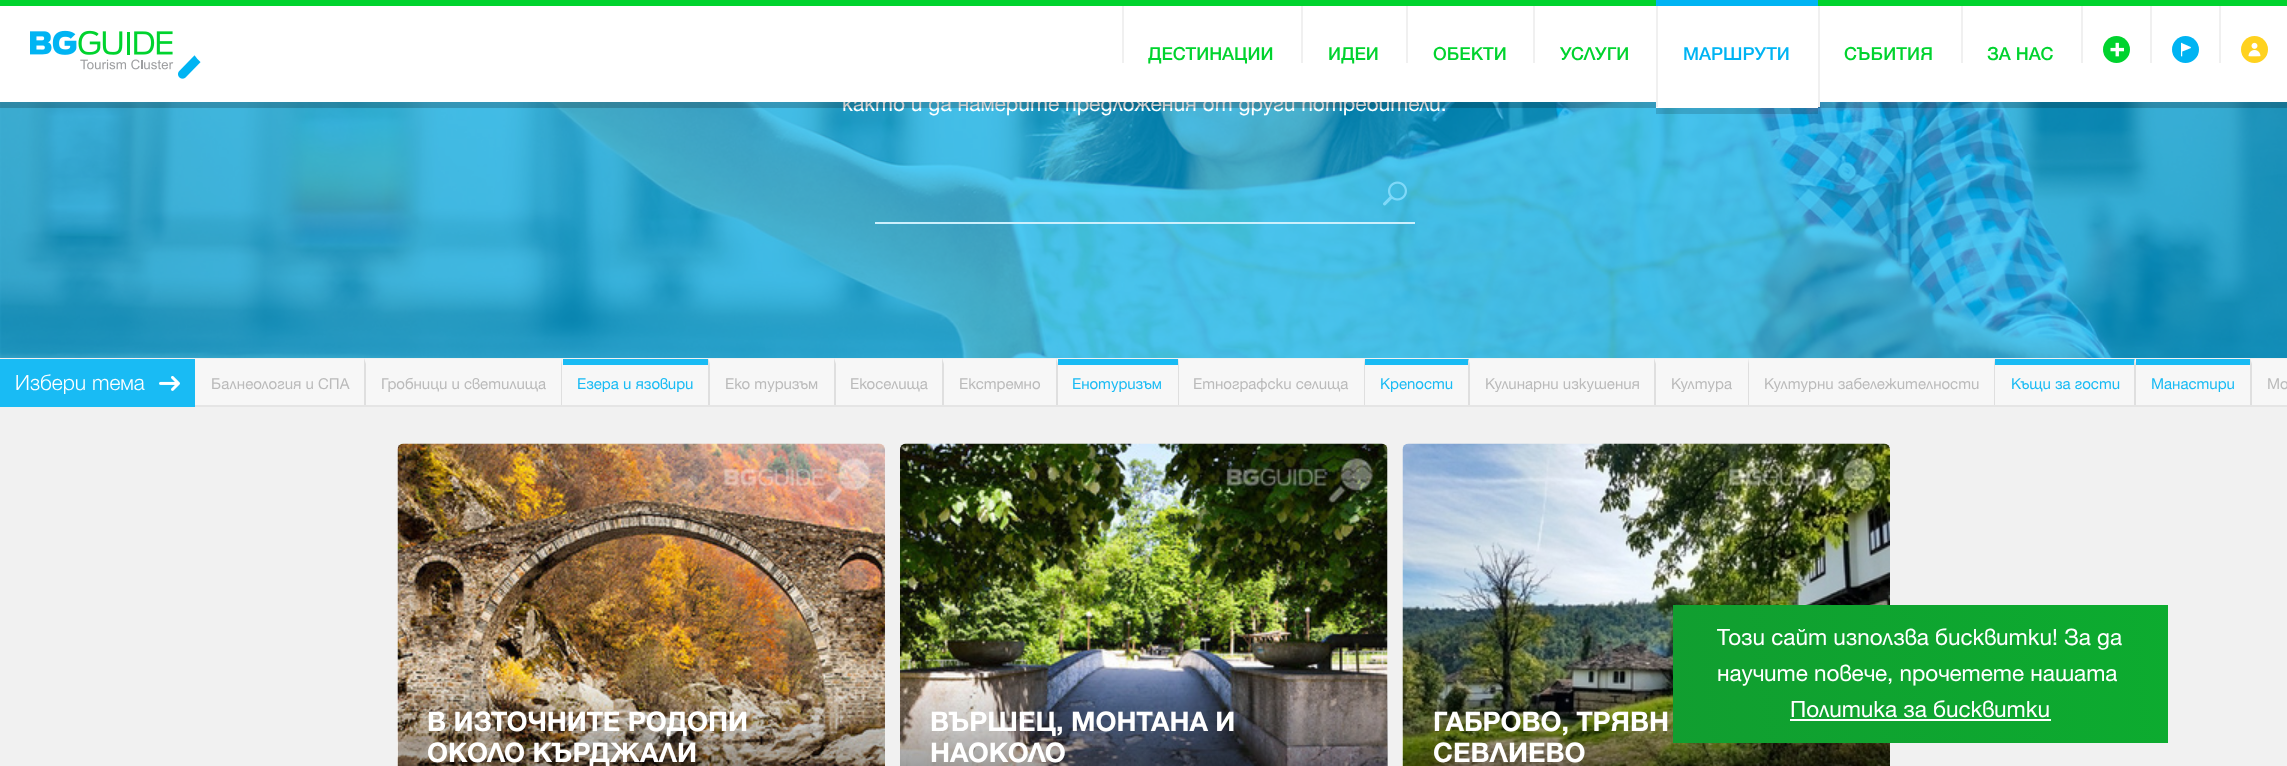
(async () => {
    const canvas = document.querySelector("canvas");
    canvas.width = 2287;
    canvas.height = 766;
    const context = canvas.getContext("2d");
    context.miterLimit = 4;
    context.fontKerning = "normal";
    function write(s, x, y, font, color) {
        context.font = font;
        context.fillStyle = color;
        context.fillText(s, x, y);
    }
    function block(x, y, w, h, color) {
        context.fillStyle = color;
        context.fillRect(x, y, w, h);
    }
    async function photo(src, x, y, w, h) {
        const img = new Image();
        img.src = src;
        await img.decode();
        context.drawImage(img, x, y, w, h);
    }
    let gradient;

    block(0, 0, 2287, 766, "rgb(241, 241, 241)");
    await photo("media/5.png", 0, 102, 2287, 256);
    write("както и да намерите предложения от други потребители.", 842, 111, "21px 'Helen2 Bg'", "rgb(255, 255, 255)");
    context.fillStyle = "rgba(0, 0, 0, 0.2)";
    context.beginPath();
    context.moveTo(0, 102);
    context.lineTo(0, 108);
    context.lineTo(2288, 108);
    context.lineTo(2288, 6);
    context.lineTo(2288, 102);
    context.closePath();
    context.fill();
    block(0, 6, 2287, 96, "rgb(255, 255, 255)");
    block(0, 0, 2287, 6, "rgb(0, 211, 46)");
    await photo("media/1.png", 30, 30, 171, 49);
    block(1122, 6, 2, 57, "rgb(240, 240, 240)");
    write("ДЕСТИНАЦИИ", 1148, 60, "500 18px 'Helen2 Bg'", "rgb(0, 211, 46)");
    block(1301, 6, 2, 57, "rgb(240, 240, 240)");
    write("ИДЕИ", 1328, 60, "500 18px 'Helen2 Bg'", "rgb(0, 211, 46)");
    block(1406, 6, 2, 57, "rgb(240, 240, 240)");
    write("ОБЕКТИ", 1433, 60, "500 18px 'Helen2 Bg'", "rgb(0, 211, 46)");
    block(1533, 6, 2, 57, "rgb(240, 240, 240)");
    write("УСЛУГИ", 1560, 60, "500 18px 'Helen2 Bg'", "rgb(0, 211, 46)");
    block(1656, 0, 162, 6, "rgb(0, 180, 243)");
    block(1656, 102, 162, 6, "rgb(255, 255, 255)");
    block(1656, 6, 2, 101, "rgb(240, 240, 240)");
    write("МАРШРУТИ", 1683, 60, "500 18px 'Helen2 Bg'", "rgb(0, 180, 243)");
    block(1656, 108, 162, 6, "rgba(0, 0, 0, 0.15)");
    block(1818, 6, 2, 101, "rgb(240, 240, 240)");
    write("СЪБИТИЯ", 1844, 60, "500 18px 'Helen2 Bg'", "rgb(0, 211, 46)");
    block(1961, 6, 2, 57, "rgb(240, 240, 240)");
    write("ЗА НАС", 1987, 60, "500 18px 'Helen2 Bg'", "rgb(0, 211, 46)");
    block(2081, 6, 2, 57, "rgb(240, 240, 240)");
    context.fillStyle = "rgb(0, 211, 46)";
    context.beginPath();
    context.arc(2116.5, 49.5, 13.5, 0, Math.PI * 2);
    context.fill();
    await photo("media/2.png", 2110, 42, 14, 15);
    block(2150, 6, 2, 57, "rgb(240, 240, 240)");
    context.fillStyle = "rgb(0, 180, 243)";
    context.beginPath();
    context.arc(2185.5, 49.5, 13.5, 0, Math.PI * 2);
    context.fill();
    await photo("media/3.png", 2181, 42, 10, 15);
    block(2219, 6, 2, 57, "rgb(240, 240, 240)");
    context.fillStyle = "rgb(255, 210, 31)";
    context.beginPath();
    context.arc(2254.5, 49.5, 13.5, 0, Math.PI * 2);
    context.fill();
    await photo("media/4.png", 2248, 42, 13, 15);
    await photo("media/6.png", 1383, 181, 24, 25);
    block(875, 222, 540, 2, "rgb(204, 240, 253)");
    block(195, 359, 2092, 46, "rgb(247, 247, 247)");
    block(0, 359, 195, 48, "rgb(25, 187, 244)");
    write("Избери тема", 15, 390, "300 21px 'Helen2 Bg'", "rgb(255, 255, 255)");
    await photo("media/7.png", 159, 376, 21, 15);
    block(195, 405, 2092, 2, "rgb(229, 229, 229)");
    write("Балнеология и СПА", 211, 389, "15px 'Helen2 Bg'", "rgb(187, 187, 187)");
    context.fillStyle = "rgb(223, 223, 223)";
    context.beginPath();
    context.moveTo(364, 405);
    context.lineTo(364, 358);
    context.lineTo(366, 364);
    context.lineTo(366, 405);
    context.closePath();
    context.fill();
    write("Гробници и светилища", 381, 389, "15px 'Helen2 Bg'", "rgb(187, 187, 187)");
    context.fillStyle = "rgb(223, 223, 223)";
    context.beginPath();
    context.moveTo(561, 405);
    context.lineTo(561, 358);
    context.lineTo(562, 364);
    context.lineTo(562, 405);
    context.closePath();
    context.fill();
    block(563, 359, 145, 6, "rgb(25, 187, 244)");
    write("Езера и язовири", 577, 389, "15px 'Helen2 Bg'", "rgb(25, 187, 244)");
    context.fillStyle = "rgb(223, 223, 223)";
    context.beginPath();
    context.moveTo(708, 405);
    context.lineTo(708, 358);
    context.lineTo(710, 364);
    context.lineTo(710, 405);
    context.closePath();
    context.fill();
    write("Еко туризъм", 725, 389, "15px 'Helen2 Bg'", "rgb(187, 187, 187)");
    context.fillStyle = "rgb(223, 223, 223)";
    context.beginPath();
    context.moveTo(834, 405);
    context.lineTo(834, 358);
    context.lineTo(836, 364);
    context.lineTo(836, 405);
    context.closePath();
    context.fill();
    write("Екоселища", 850, 389, "15px 'Helen2 Bg'", "rgb(187, 187, 187)");
    context.fillStyle = "rgb(223, 223, 223)";
    context.beginPath();
    context.moveTo(942, 405);
    context.lineTo(942, 358);
    context.lineTo(944, 364);
    context.lineTo(944, 405);
    context.closePath();
    context.fill();
    write("Екстремно", 959, 389, "15px 'Helen2 Bg'", "rgb(187, 187, 187)");
    context.fillStyle = "rgb(223, 223, 223)";
    context.beginPath();
    context.moveTo(1056, 405);
    context.lineTo(1056, 358);
    context.lineTo(1058, 364);
    context.lineTo(1058, 405);
    context.closePath();
    context.fill();
    block(1058, 359, 120, 6, "rgb(25, 187, 244)");
    write("Енотуризъм", 1072, 389, "15px 'Helen2 Bg'", "rgb(25, 187, 244)");
    context.fillStyle = "rgb(223, 223, 223)";
    context.beginPath();
    context.moveTo(1178, 405);
    context.lineTo(1178, 358);
    context.lineTo(1179, 364);
    context.lineTo(1179, 405);
    context.closePath();
    context.fill();
    write("Етнографски селища", 1193, 389, "15px 'Helen2 Bg'", "rgb(187, 187, 187)");
    context.fillStyle = "rgb(223, 223, 223)";
    context.beginPath();
    context.moveTo(1364, 405);
    context.lineTo(1364, 358);
    context.lineTo(1365, 364);
    context.lineTo(1365, 405);
    context.closePath();
    context.fill();
    block(1365, 359, 104, 6, "rgb(25, 187, 244)");
    write("Крепости", 1380, 389, "15px 'Helen2 Bg'", "rgb(25, 187, 244)");
    context.fillStyle = "rgb(223, 223, 223)";
    context.beginPath();
    context.moveTo(1468, 405);
    context.lineTo(1468, 358);
    context.lineTo(1470, 364);
    context.lineTo(1470, 405);
    context.closePath();
    context.fill();
    write("Кулинарни изкушения", 1485, 389, "15px 'Helen2 Bg'", "rgb(187, 187, 187)");
    context.fillStyle = "rgb(223, 223, 223)";
    context.beginPath();
    context.moveTo(1654, 405);
    context.lineTo(1654, 358);
    context.lineTo(1656, 364);
    context.lineTo(1656, 405);
    context.closePath();
    context.fill();
    write("Култура", 1671, 389, "15px 'Helen2 Bg'", "rgb(187, 187, 187)");
    context.fillStyle = "rgb(223, 223, 223)";
    context.beginPath();
    context.moveTo(1748, 405);
    context.lineTo(1748, 358);
    context.lineTo(1749, 364);
    context.lineTo(1749, 405);
    context.closePath();
    context.fill();
    write("Културни забележителности", 1764, 389, "15px 'Helen2 Bg'", "rgb(187, 187, 187)");
    context.fillStyle = "rgb(223, 223, 223)";
    context.beginPath();
    context.moveTo(1994, 405);
    context.lineTo(1994, 358);
    context.lineTo(1995, 364);
    context.lineTo(1995, 405);
    context.closePath();
    context.fill();
    block(1995, 359, 140, 6, "rgb(25, 187, 244)");
    write("Къщи за гости", 2011, 389, "15px 'Helen2 Bg'", "rgb(25, 187, 244)");
    context.fillStyle = "rgb(223, 223, 223)";
    context.beginPath();
    context.moveTo(2134, 405);
    context.lineTo(2134, 358);
    context.lineTo(2136, 364);
    context.lineTo(2136, 405);
    context.closePath();
    context.fill();
    block(2136, 359, 114, 6, "rgb(25, 187, 244)");
    write("Манастири", 2151, 389, "15px 'Helen2 Bg'", "rgb(25, 187, 244)");
    context.fillStyle = "rgb(223, 223, 223)";
    context.beginPath();
    context.moveTo(2250, 405);
    context.lineTo(2250, 358);
    context.lineTo(2252, 364);
    context.lineTo(2252, 405);
    context.closePath();
    context.fill();
    write("Мо", 2267, 389, "15px 'Helen2 Bg'", "rgb(187, 187, 187)");
    await photo("media/8.png", 397, 443, 488, 323);
    write("В ИЗТОЧНИТЕ РОДОПИ", 427, 731, "bold 27px 'Helen2 Bg'", "rgb(255, 255, 255)");
    write("ОКОЛО КЪРДЖАЛИ", 427, 762, "bold 27px 'Helen2 Bg'", "rgb(255, 255, 255)");
    await photo("media/9.png", 900, 443, 488, 323);
    gradient = context.createLinearGradient(1144, 675, 1144, 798);
    gradient.addColorStop(0, "rgba(0, 0, 0, 0)");
    gradient.addColorStop(1, "rgba(0, 0, 0, 0.5)");
    context.fillStyle = gradient;
    context.fillRect(900, 680, 488, 86);
    write("ВЪРШЕЦ, МОНТАНА И", 930, 731, "bold 27px 'Helen2 Bg'", "rgb(255, 255, 255)");
    write("НАОКОЛО", 930, 762, "bold 27px 'Helen2 Bg'", "rgb(255, 255, 255)");
    await photo("media/10.png", 1402, 443, 488, 323);
    write("ГАБРОВО, ТРЯВН", 1433, 731, "bold 27px 'Helen2 Bg'", "rgb(255, 255, 255)");
    write("СЕВЛИЕВО", 1433, 762, "bold 27px 'Helen2 Bg'", "rgb(255, 255, 255)");
    gradient = context.createLinearGradient(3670, 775, 1655, 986);
    gradient.addColorStop(0, "rgb(0, 211, 46)");
    gradient.addColorStop(1, "rgb(17, 157, 48)");
    context.fillStyle = gradient;
    context.fillRect(1673, 605, 495, 138);
    write("Този сайт използва бисквитки! За да", 1717, 645, "22.5px 'Helen2 Bg'", "rgb(255, 255, 255)");
    write("научите повече, прочетете нашата", 1717, 681, "22.5px 'Helen2 Bg'", "rgb(255, 255, 255)");
    write("Политика за бисквитки", 1790, 717, "22.5px 'Helen2 Bg'", "rgb(255, 255, 255)");
    block(1790, 719, 261, 2, "rgb(255, 255, 255)");
})();
